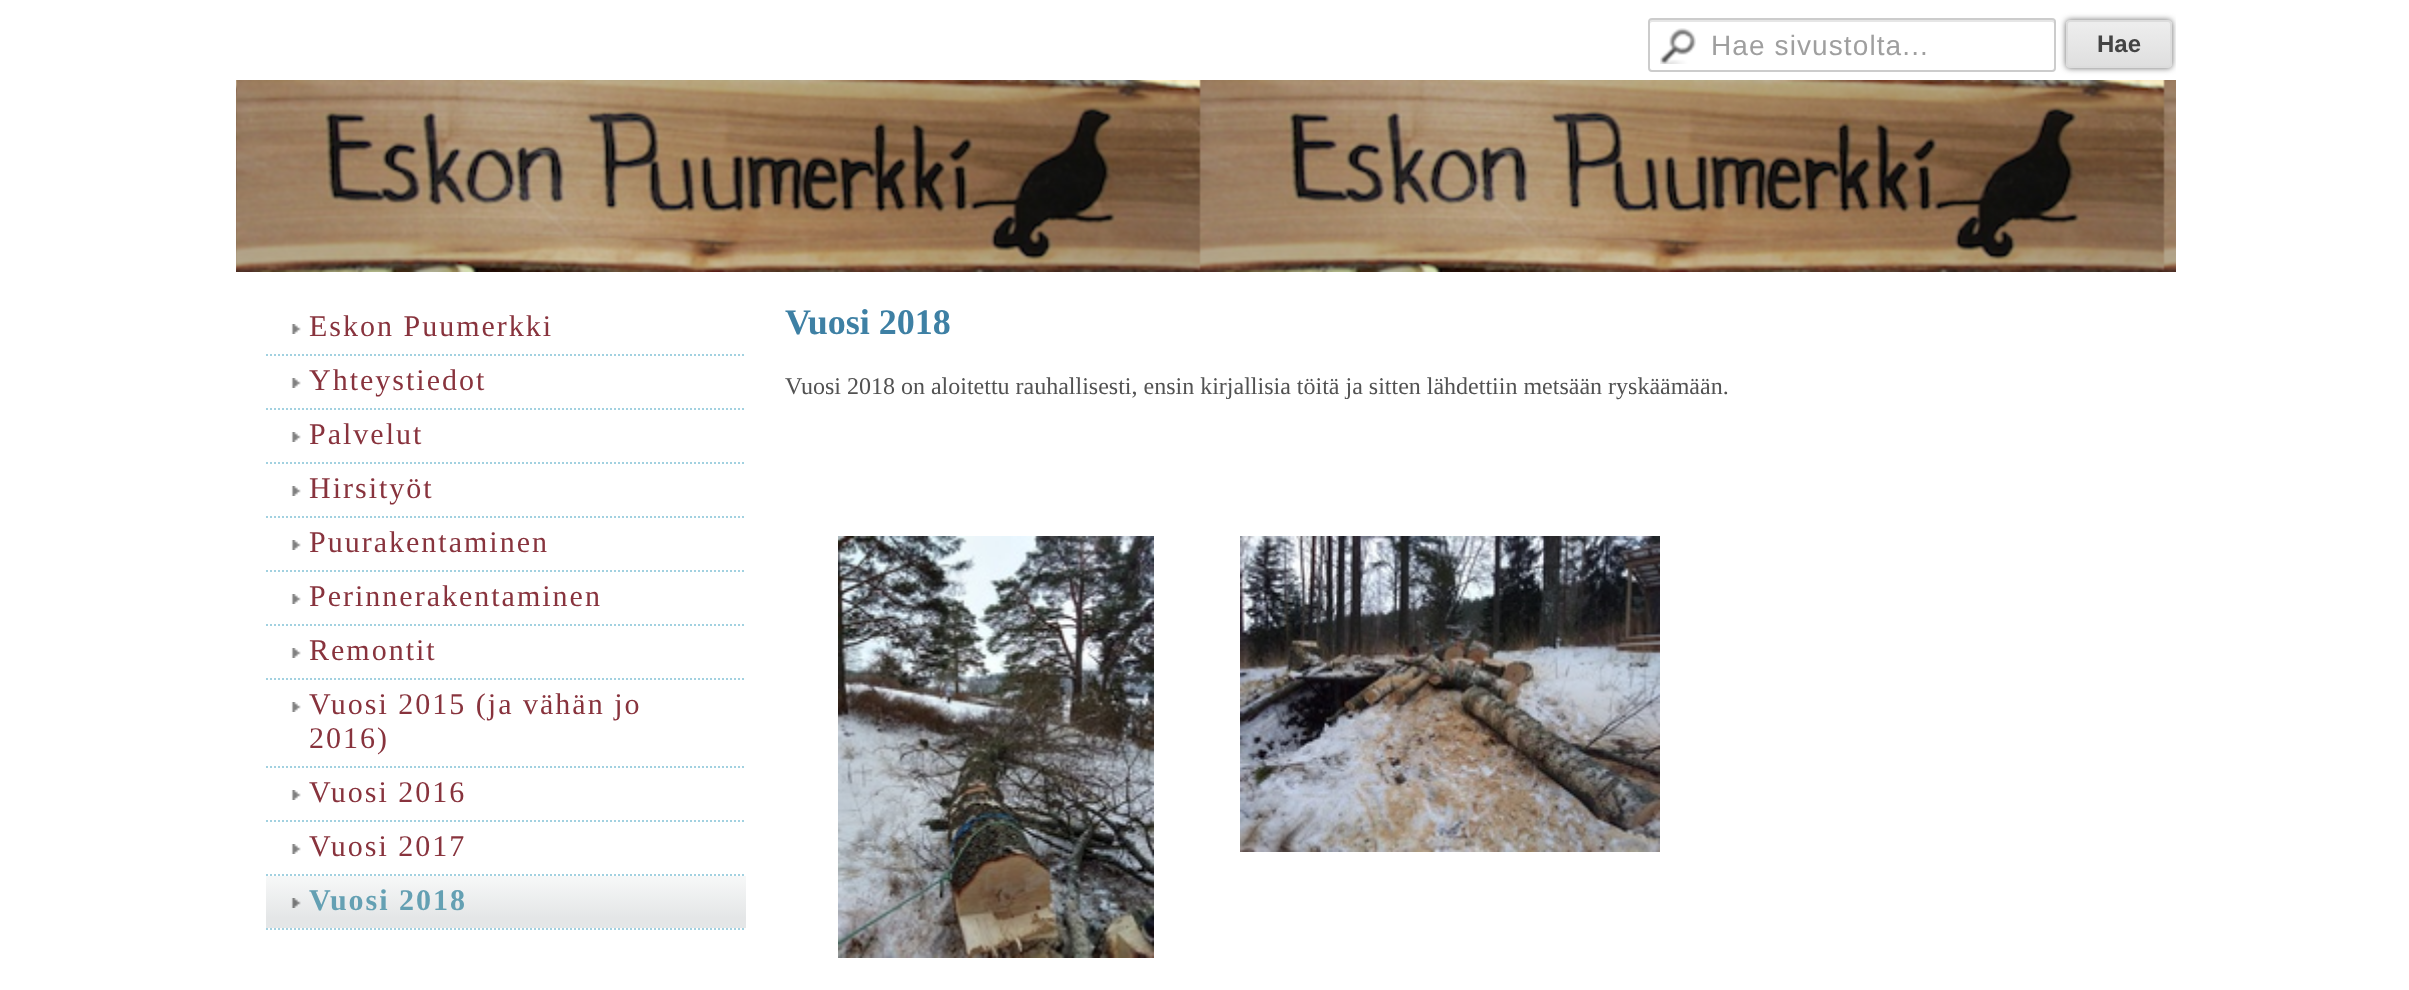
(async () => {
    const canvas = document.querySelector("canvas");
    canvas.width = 2409;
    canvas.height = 990;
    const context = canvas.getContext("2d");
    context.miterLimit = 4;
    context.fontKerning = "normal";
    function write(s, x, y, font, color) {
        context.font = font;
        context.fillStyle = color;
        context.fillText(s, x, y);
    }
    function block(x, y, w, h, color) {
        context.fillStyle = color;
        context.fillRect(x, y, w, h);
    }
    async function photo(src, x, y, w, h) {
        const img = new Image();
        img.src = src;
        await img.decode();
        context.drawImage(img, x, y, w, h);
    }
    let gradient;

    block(0, 0, 2409, 990, "rgb(255, 255, 255)");
    await photo("media/1.png", 1660, 28, 36, 36);
    context.fillStyle = "rgb(230, 230, 230)";
    context.beginPath();
    context.moveTo(1652, 22);
    context.lineTo(2052, 22);
    context.bezierCurveTo(2053, 22, 2054, 23, 2054, 24);
    context.bezierCurveTo(2054, 22, 2054, 20, 2052, 20);
    context.lineTo(1651, 20);
    context.bezierCurveTo(1650, 21, 1650, 23, 1650, 24);
    context.bezierCurveTo(1650, 23, 1651, 22, 1652, 22);
    context.closePath();
    context.fill();
    context.beginPath();
    context.roundRect(1649, 19, 406, 52, 3);
    context.strokeStyle = "rgb(204, 204, 204)";
    context.lineWidth = 2;
    context.stroke();
    context.letterSpacing = "1.1px";
    write("Hae sivustolta...", 1711, 55, "28px Liberation Sans", "rgb(159, 159, 159)");
    context.save();
    context.beginPath();
    context.rect(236, 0, 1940, 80);
    context.clip();
    context.fillStyle = "rgb(102, 102, 102)";
    context.filter = "blur(3px)";
    context.beginPath();
    context.roundRect(2066, 20, 106, 48, 4);
    context.fill();
    context.filter = "none";
    context.restore();
    context.save();
    context.beginPath();
    context.roundRect(2066, 20, 106, 48, 4);
    context.clip();
    gradient = context.createLinearGradient(2068, 22, 2068, 66);
    gradient.addColorStop(0.05, "rgb(237, 237, 237)");
    gradient.addColorStop(1, "rgb(223, 223, 223)");
    context.fillStyle = gradient;
    context.fillRect(2066, 22, 106, 44);
    context.restore();
    context.beginPath();
    context.roundRect(2067, 21, 104, 46, 3);
    context.strokeStyle = "rgb(220, 220, 220)";
    context.stroke();
    context.letterSpacing = "0px";
    write("Hae", 2097, 52, "bold 24px Liberation Sans", "rgb(68, 68, 68)");
    await photo("media/2.png", 236, 80, 1940, 192);
    context.beginPath();
    context.moveTo(266, 355);
    context.lineTo(746, 355);
    context.strokeStyle = "rgb(162, 209, 224)";
    context.setLineDash([2, 2]);
    context.stroke();
    await photo("media/3.png", 291, 324, 10, 10);
    context.letterSpacing = "2px";
    write("Eskon Puumerkki", 309, 336, "30px Liberation Serif", "rgb(136, 51, 61)");
    context.beginPath();
    context.moveTo(266, 409);
    context.lineTo(746, 409);
    context.stroke();
    await photo("media/3.png", 291, 378, 10, 10);
    write("Yhteystiedot", 309, 390, "30px Liberation Serif", "rgb(136, 51, 61)");
    context.beginPath();
    context.moveTo(266, 463);
    context.lineTo(746, 463);
    context.stroke();
    await photo("media/3.png", 291, 432, 10, 10);
    write("Palvelut", 309, 444, "30px Liberation Serif", "rgb(136, 51, 61)");
    context.beginPath();
    context.moveTo(266, 517);
    context.lineTo(746, 517);
    context.stroke();
    await photo("media/3.png", 291, 486, 10, 10);
    write("Hirsityöt", 309, 498, "30px Liberation Serif", "rgb(136, 51, 61)");
    context.beginPath();
    context.moveTo(266, 571);
    context.lineTo(746, 571);
    context.stroke();
    await photo("media/3.png", 291, 540, 10, 10);
    write("Puurakentaminen", 309, 552, "30px Liberation Serif", "rgb(136, 51, 61)");
    context.beginPath();
    context.moveTo(266, 625);
    context.lineTo(746, 625);
    context.stroke();
    await photo("media/3.png", 291, 594, 10, 10);
    write("Perinnerakentaminen", 309, 606, "30px Liberation Serif", "rgb(136, 51, 61)");
    context.beginPath();
    context.moveTo(266, 679);
    context.lineTo(746, 679);
    context.stroke();
    await photo("media/3.png", 291, 648, 10, 10);
    write("Remontit", 309, 660, "30px Liberation Serif", "rgb(136, 51, 61)");
    context.beginPath();
    context.moveTo(266, 767);
    context.lineTo(746, 767);
    context.stroke();
    await photo("media/3.png", 291, 702, 10, 10);
    write("Vuosi 2015 (ja vähän jo", 309, 714, "30px Liberation Serif", "rgb(136, 51, 61)");
    write("2016)", 309, 748, "30px Liberation Serif", "rgb(136, 51, 61)");
    context.beginPath();
    context.moveTo(266, 821);
    context.lineTo(746, 821);
    context.stroke();
    await photo("media/3.png", 291, 790, 10, 10);
    write("Vuosi 2016", 309, 802, "30px Liberation Serif", "rgb(136, 51, 61)");
    context.beginPath();
    context.moveTo(266, 875);
    context.lineTo(746, 875);
    context.stroke();
    await photo("media/3.png", 291, 844, 10, 10);
    write("Vuosi 2017", 309, 856, "30px Liberation Serif", "rgb(136, 51, 61)");
    gradient = context.createLinearGradient(506, 876, 506, 928);
    gradient.addColorStop(0, "rgb(247, 248, 248)");
    gradient.addColorStop(0.81, "rgb(228, 230, 231)");
    gradient.addColorStop(1, "rgb(228, 230, 231)");
    context.fillStyle = gradient;
    context.fillRect(266, 876, 480, 52);
    context.beginPath();
    context.moveTo(266, 929);
    context.lineTo(746, 929);
    context.stroke();
    await photo("media/4.png", 291, 898, 10, 10);
    write("Vuosi 2018", 309, 910, "bold 30px Liberation Serif", "rgb(100, 160, 179)");
    context.letterSpacing = "0px";
    write("Vuosi 2018", 785, 334, "bold 36px Liberation Serif", "rgb(62, 128, 164)");
    write("Vuosi 2018 on aloitettu rauhallisesti, ensin kirjallisia töitä ja sitten lähdettiin metsään ryskäämään.", 785, 394, "24px Liberation Serif", "rgb(82, 82, 82)");
    await photo("media/5.png", 838, 536, 316, 422);
    await photo("media/6.png", 1240, 536, 420, 316);
})();
